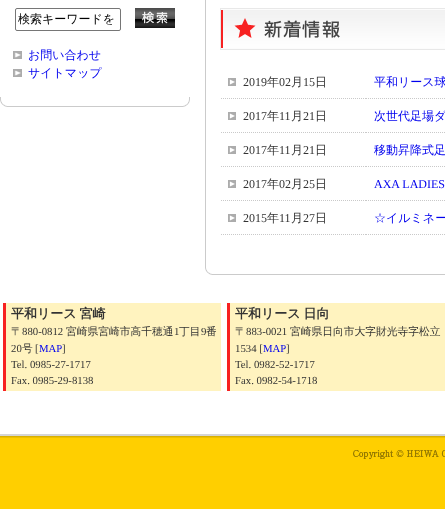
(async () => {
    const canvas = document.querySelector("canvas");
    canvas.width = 445;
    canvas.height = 509;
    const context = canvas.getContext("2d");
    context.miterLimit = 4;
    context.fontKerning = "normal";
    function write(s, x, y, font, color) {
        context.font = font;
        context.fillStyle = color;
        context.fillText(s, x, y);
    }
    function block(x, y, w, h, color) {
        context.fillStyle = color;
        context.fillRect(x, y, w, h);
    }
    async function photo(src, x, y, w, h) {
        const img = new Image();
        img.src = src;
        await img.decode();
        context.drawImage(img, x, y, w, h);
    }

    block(0, 0, 445, 509, "rgb(255, 255, 255)");
    context.beginPath();
    context.roundRect(15.5, 8.5, 105, 22, 1.5);
    context.strokeStyle = "rgb(118, 118, 118)";
    context.stroke();
    write("検索キーワードを", 18, 23, "500 12px WenQuanYi Zen Hei", "rgb(0, 0, 0)");
    await photo("media/1.png", 135, 8, 40, 20);
    await photo("media/2.png", 13, 51, 9, 8);
    write("お問い合わせ", 28, 59, "500 12px WenQuanYi Zen Hei", "rgb(0, 0, 238)");
    await photo("media/2.png", 13, 69, 9, 8);
    write("サイトマップ", 28, 77, "500 12px WenQuanYi Zen Hei", "rgb(0, 0, 238)");
    await photo("media/3.png", 0, 97, 190, 10);
    block(205, 0, 1, 275, "rgb(203, 203, 203)");
    await photo("media/4.png", 220, 8, 225, 42);
    await photo("media/5.png", 221, 98, 145, 1);
    await photo("media/6.png", 228, 78, 8, 8);
    write("2019", 243, 86, "12px Liberation Serif", "rgb(51, 51, 51)");
    write("年", 267, 86, "500 12px WenQuanYi Zen Hei", "rgb(51, 51, 51)");
    write("02", 279, 86, "12px Liberation Serif", "rgb(51, 51, 51)");
    write("月", 291, 86, "500 12px WenQuanYi Zen Hei", "rgb(51, 51, 51)");
    write("15", 303, 86, "12px Liberation Serif", "rgb(51, 51, 51)");
    write("日", 315, 86, "500 12px WenQuanYi Zen Hei", "rgb(51, 51, 51)");
    await photo("media/7.png", 366, 98, 79, 1);
    write("平和リース球", 374, 86, "500 12px WenQuanYi Zen Hei", "rgb(0, 0, 238)");
    await photo("media/5.png", 221, 132, 145, 1);
    await photo("media/6.png", 228, 112, 8, 8);
    write("2017", 243, 120, "12px Liberation Serif", "rgb(51, 51, 51)");
    write("年", 267, 120, "500 12px WenQuanYi Zen Hei", "rgb(51, 51, 51)");
    write("11", 279, 120, "12px Liberation Serif", "rgb(51, 51, 51)");
    write("月", 291, 120, "500 12px WenQuanYi Zen Hei", "rgb(51, 51, 51)");
    write("21", 303, 120, "12px Liberation Serif", "rgb(51, 51, 51)");
    write("日", 315, 120, "500 12px WenQuanYi Zen Hei", "rgb(51, 51, 51)");
    await photo("media/7.png", 366, 132, 79, 1);
    write("次世代足場ダ", 374, 120, "500 12px WenQuanYi Zen Hei", "rgb(0, 0, 238)");
    await photo("media/5.png", 221, 166, 145, 1);
    await photo("media/6.png", 228, 146, 8, 8);
    write("2017", 243, 154, "12px Liberation Serif", "rgb(51, 51, 51)");
    write("年", 267, 154, "500 12px WenQuanYi Zen Hei", "rgb(51, 51, 51)");
    write("11", 279, 154, "12px Liberation Serif", "rgb(51, 51, 51)");
    write("月", 291, 154, "500 12px WenQuanYi Zen Hei", "rgb(51, 51, 51)");
    write("21", 303, 154, "12px Liberation Serif", "rgb(51, 51, 51)");
    write("日", 315, 154, "500 12px WenQuanYi Zen Hei", "rgb(51, 51, 51)");
    await photo("media/7.png", 366, 166, 79, 1);
    write("移動昇降式足", 374, 154, "500 12px WenQuanYi Zen Hei", "rgb(0, 0, 238)");
    await photo("media/5.png", 221, 200, 145, 1);
    await photo("media/6.png", 228, 180, 8, 8);
    write("2017", 243, 188, "12px Liberation Serif", "rgb(51, 51, 51)");
    write("年", 267, 188, "500 12px WenQuanYi Zen Hei", "rgb(51, 51, 51)");
    write("02", 279, 188, "12px Liberation Serif", "rgb(51, 51, 51)");
    write("月", 291, 188, "500 12px WenQuanYi Zen Hei", "rgb(51, 51, 51)");
    write("25", 303, 188, "12px Liberation Serif", "rgb(51, 51, 51)");
    write("日", 315, 188, "500 12px WenQuanYi Zen Hei", "rgb(51, 51, 51)");
    await photo("media/7.png", 366, 200, 79, 1);
    write("AXA LADIES", 374, 188, "12px Liberation Serif", "rgb(0, 0, 238)");
    await photo("media/5.png", 221, 234, 145, 1);
    await photo("media/6.png", 228, 214, 8, 8);
    write("2015", 243, 222, "12px Liberation Serif", "rgb(51, 51, 51)");
    write("年", 267, 222, "500 12px WenQuanYi Zen Hei", "rgb(51, 51, 51)");
    write("11", 279, 222, "12px Liberation Serif", "rgb(51, 51, 51)");
    write("月", 291, 222, "500 12px WenQuanYi Zen Hei", "rgb(51, 51, 51)");
    write("27", 303, 222, "12px Liberation Serif", "rgb(51, 51, 51)");
    write("日", 315, 222, "500 12px WenQuanYi Zen Hei", "rgb(51, 51, 51)");
    await photo("media/7.png", 366, 234, 79, 1);
    write("☆イルミネー", 374, 222, "500 12px WenQuanYi Zen Hei", "rgb(0, 0, 238)");
    await photo("media/8.png", 205, 268, 240, 7);
    block(6, 303, 215, 88, "rgb(255, 243, 191)");
    block(3, 303, 3, 88, "rgb(247, 33, 33)");
    context.wordSpacing = "-1px";
    write("平和リース 宮崎", 11, 318, "bold 13px WenQuanYi Zen Hei", "rgb(51, 51, 51)");
    context.wordSpacing = "0px";
    write("〒", 11, 335, "500 10.75px WenQuanYi Zen Hei", "rgb(51, 51, 51)");
    write("880-0812", 22, 335, "10.75px Liberation Serif", "rgb(51, 51, 51)");
    write("宮崎県宮崎市高千穂通", 66, 335, "500 10.75px WenQuanYi Zen Hei", "rgb(51, 51, 51)");
    write("1", 174, 335, "10.75px Liberation Serif", "rgb(51, 51, 51)");
    write("丁目", 179, 335, "500 10.75px WenQuanYi Zen Hei", "rgb(51, 51, 51)");
    write("9", 201, 335, "10.75px Liberation Serif", "rgb(51, 51, 51)");
    write("番", 206, 335, "500 10.75px WenQuanYi Zen Hei", "rgb(51, 51, 51)");
    write("20", 11, 352, "10.75px Liberation Serif", "rgb(51, 51, 51)");
    write("号", 22, 352, "500 10.75px WenQuanYi Zen Hei", "rgb(51, 51, 51)");
    write("[", 35, 352, "10.75px Liberation Serif", "rgb(51, 51, 51)");
    write("MAP", 39, 352, "10.75px Liberation Serif", "rgb(0, 0, 238)");
    write("]", 62, 352, "10.75px Liberation Serif", "rgb(51, 51, 51)");
    write("Tel. 0985-27-1717", 11, 368, "10.75px Liberation Serif", "rgb(51, 51, 51)");
    write("Fax. 0985-29-8138", 11, 384, "10.75px Liberation Serif", "rgb(51, 51, 51)");
    block(230, 303, 215, 88, "rgb(255, 243, 191)");
    block(227, 303, 3, 88, "rgb(247, 33, 33)");
    context.wordSpacing = "-1px";
    write("平和リース 日向", 235, 318, "bold 13px WenQuanYi Zen Hei", "rgb(51, 51, 51)");
    context.wordSpacing = "0px";
    write("〒", 235, 335, "500 10.75px WenQuanYi Zen Hei", "rgb(51, 51, 51)");
    write("883-0021", 246, 335, "10.75px Liberation Serif", "rgb(51, 51, 51)");
    write("宮崎県日向市大字財光寺字松立", 290, 335, "500 10.75px WenQuanYi Zen Hei", "rgb(51, 51, 51)");
    write("1534 [", 235, 352, "10.75px Liberation Serif", "rgb(51, 51, 51)");
    write("MAP", 263, 352, "10.75px Liberation Serif", "rgb(0, 0, 238)");
    write("]", 286, 352, "10.75px Liberation Serif", "rgb(51, 51, 51)");
    write("Tel. 0982-52-1717", 235, 368, "10.75px Liberation Serif", "rgb(51, 51, 51)");
    write("Fax. 0982-54-1718", 235, 384, "10.75px Liberation Serif", "rgb(51, 51, 51)");
    block(0, 438, 445, 71, "rgb(255, 207, 0)");
    await photo("media/9.png", 0, 434, 445, 4);
    await photo("media/10.png", 353, 450, 92, 9);
})();
